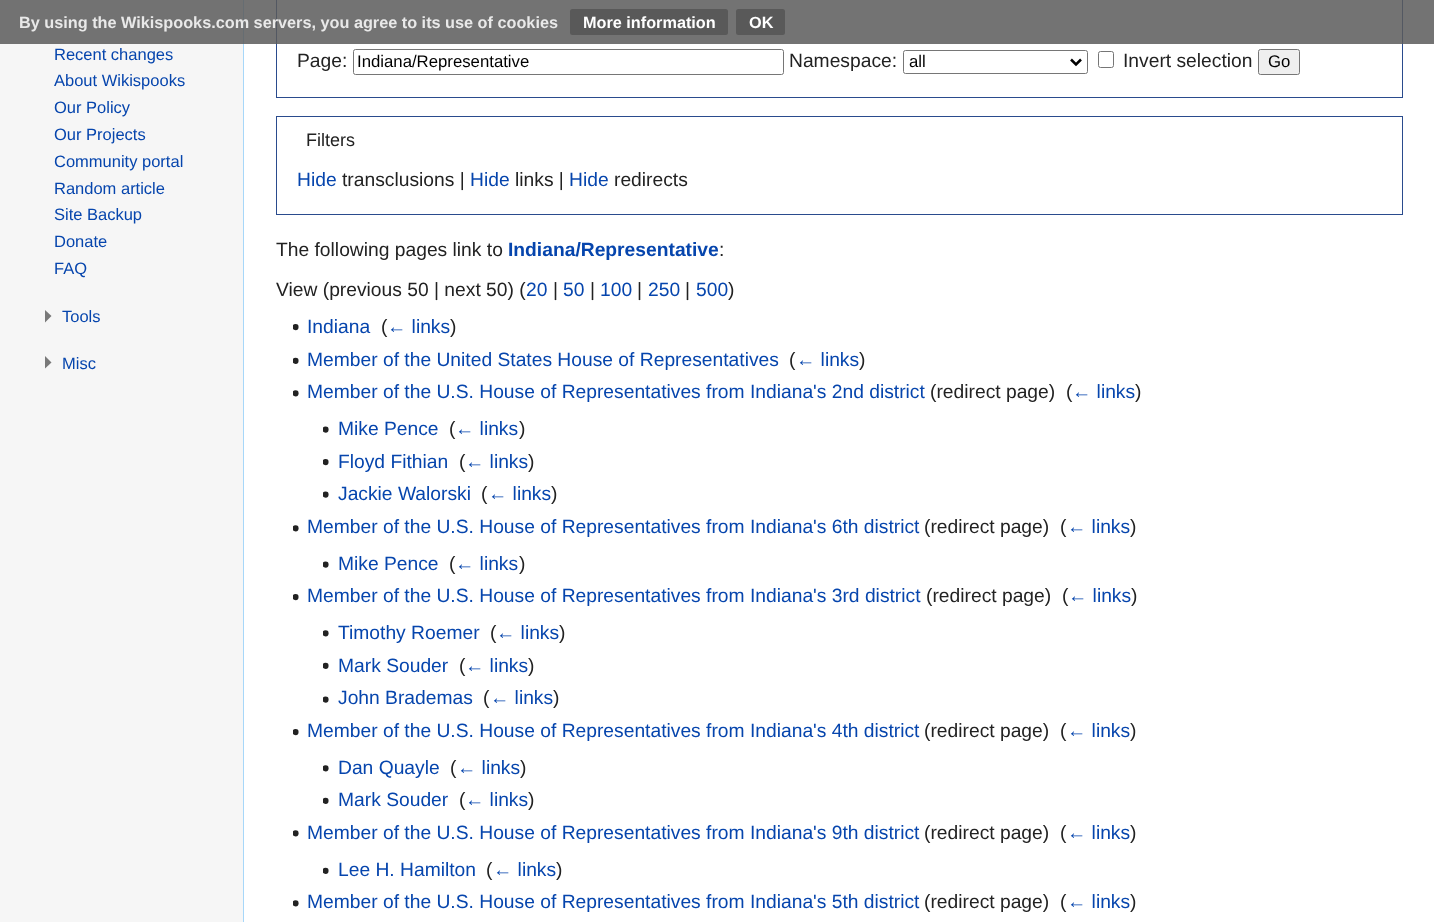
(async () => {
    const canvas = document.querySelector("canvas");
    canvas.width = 1434;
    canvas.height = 922;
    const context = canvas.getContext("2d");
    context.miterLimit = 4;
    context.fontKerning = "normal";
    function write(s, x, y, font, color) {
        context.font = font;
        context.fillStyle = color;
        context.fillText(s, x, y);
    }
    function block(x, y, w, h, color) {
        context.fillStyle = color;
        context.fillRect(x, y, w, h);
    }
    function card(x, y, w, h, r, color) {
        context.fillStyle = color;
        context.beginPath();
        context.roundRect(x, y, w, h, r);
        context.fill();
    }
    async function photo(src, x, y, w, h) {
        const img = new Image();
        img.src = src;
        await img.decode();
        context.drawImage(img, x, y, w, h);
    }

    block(0, 0, 1434, 922, "rgb(246, 246, 246)");
    block(244, 0, 1190, 922, "rgb(255, 255, 255)");
    block(243, 0, 1, 922, "rgb(167, 215, 249)");
    context.strokeStyle = "rgb(42, 75, 141)";
    context.strokeRect(276.5, -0.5, 1126, 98);
    block(0, 0, 1434, 44, "rgba(90, 90, 90, 0.85)");
    write("By using the Wikispooks.com servers, you agree to its use of cookies", 19, 28, "bold 16.25px Liberation Sans", "rgb(233, 233, 233)");
    card(570, 9, 158, 26, 2.5, "rgb(89, 89, 89)");
    write("More information", 583, 28, "bold 16.25px Liberation Sans", "rgb(255, 255, 255)");
    card(736, 9, 49, 26, 2.5, "rgb(89, 89, 89)");
    write("OK", 749, 28, "bold 16.25px Liberation Sans", "rgb(255, 255, 255)");
    write("Recent changes", 54, 60, "16.5px Liberation Sans", "rgb(6, 69, 173)");
    write("About Wikispooks", 54, 86, "16.5px Liberation Sans", "rgb(6, 69, 173)");
    write("Our Policy", 54, 113, "16.5px Liberation Sans", "rgb(6, 69, 173)");
    write("Our Projects", 54, 140, "16.5px Liberation Sans", "rgb(6, 69, 173)");
    write("Community portal", 54, 167, "16.5px Liberation Sans", "rgb(6, 69, 173)");
    write("Random article", 54, 194, "16.5px Liberation Sans", "rgb(6, 69, 173)");
    write("Site Backup", 54, 220, "16.5px Liberation Sans", "rgb(6, 69, 173)");
    write("Donate", 54, 247, "16.5px Liberation Sans", "rgb(6, 69, 173)");
    write("FAQ", 54, 274, "16.5px Liberation Sans", "rgb(6, 69, 173)");
    context.fillStyle = "rgb(121, 121, 121)";
    context.beginPath();
    context.moveTo(45, 310);
    context.lineTo(51.5, 316);
    context.lineTo(45, 322.5);
    context.closePath();
    context.fill();
    write("Tools", 62, 322, "16.5px Liberation Sans", "rgb(6, 69, 173)");
    context.fillStyle = "rgb(121, 121, 121)";
    context.beginPath();
    context.moveTo(45, 356);
    context.lineTo(51.5, 362.5);
    context.lineTo(45, 368.5);
    context.closePath();
    context.fill();
    write("Misc", 62, 369, "16.5px Liberation Sans", "rgb(6, 69, 173)");
    write("Page:", 297, 67, "19.25px Liberation Sans", "rgb(34, 34, 34)");
    context.beginPath();
    context.roundRect(353.5, 49.5, 430, 25, 2);
    context.strokeStyle = "rgb(118, 118, 118)";
    context.stroke();
    write("Indiana/Representative", 357, 67, "16.75px Liberation Sans", "rgb(0, 0, 0)");
    write("Namespace:", 789, 67, "19.25px Liberation Sans", "rgb(34, 34, 34)");
    context.beginPath();
    context.roundRect(903.5, 50.5, 184, 23, 2);
    context.stroke();
    context.beginPath();
    context.moveTo(1071, 59.5);
    context.lineTo(1076, 64.5);
    context.lineTo(1081, 59.5);
    context.strokeStyle = "rgb(0, 0, 0)";
    context.lineWidth = 2.5;
    context.stroke();
    write("all", 909, 67, "16.75px Liberation Sans", "rgb(0, 0, 0)");
    context.beginPath();
    context.roundRect(1098.5, 51.5, 15, 16, 2);
    context.strokeStyle = "rgb(118, 118, 118)";
    context.lineWidth = 1;
    context.stroke();
    write("Invert selection", 1123, 67, "19.25px Liberation Sans", "rgb(34, 34, 34)");
    context.fillStyle = "rgb(239, 239, 239)";
    context.beginPath();
    context.roundRect(1258.5, 49.5, 41, 25, 2);
    context.fill();
    context.stroke();
    write("Go", 1268, 67, "16.75px Liberation Sans", "rgb(0, 0, 0)");
    context.strokeStyle = "rgb(42, 75, 141)";
    context.strokeRect(276.5, 116.5, 1126, 98);
    write("Filters", 306, 146, "18px Liberation Sans", "rgb(34, 34, 34)");
    write("Hide", 297, 186, "19.25px Liberation Sans", "rgb(6, 69, 173)");
    write("transclusions |", 342, 186, "19.25px Liberation Sans", "rgb(34, 34, 34)");
    write("Hide", 470, 186, "19.25px Liberation Sans", "rgb(6, 69, 173)");
    write("links |", 515, 186, "19.25px Liberation Sans", "rgb(34, 34, 34)");
    write("Hide", 569, 186, "19.25px Liberation Sans", "rgb(6, 69, 173)");
    write("redirects", 614, 186, "19.25px Liberation Sans", "rgb(34, 34, 34)");
    write("The following pages link to", 276, 256, "19.25px Liberation Sans", "rgb(34, 34, 34)");
    write("Indiana/Representative", 508, 256, "bold 19.25px Liberation Sans", "rgb(6, 69, 173)");
    write(":", 719, 256, "19.25px Liberation Sans", "rgb(34, 34, 34)");
    write("View (previous 50 | next 50) (", 276, 296, "19.25px Liberation Sans", "rgb(34, 34, 34)");
    write("20", 526, 296, "19.25px Liberation Sans", "rgb(6, 69, 173)");
    write("|", 553, 296, "19.25px Liberation Sans", "rgb(34, 34, 34)");
    write("50", 563, 296, "19.25px Liberation Sans", "rgb(6, 69, 173)");
    write("|", 590, 296, "19.25px Liberation Sans", "rgb(34, 34, 34)");
    write("100", 600, 296, "19.25px Liberation Sans", "rgb(6, 69, 173)");
    write("|", 637, 296, "19.25px Liberation Sans", "rgb(34, 34, 34)");
    write("250", 648, 296, "19.25px Liberation Sans", "rgb(6, 69, 173)");
    write("|", 685, 296, "19.25px Liberation Sans", "rgb(34, 34, 34)");
    write("500", 696, 296, "19.25px Liberation Sans", "rgb(6, 69, 173)");
    write(")", 728, 296, "19.25px Liberation Sans", "rgb(34, 34, 34)");
    await photo("media/1.png", 293, 324, 6, 7);
    write("Indiana", 307, 333, "19.25px Liberation Sans", "rgb(6, 69, 173)");
    write("(", 381, 333, "19.25px Liberation Sans", "rgb(34, 34, 34)");
    write("← links", 387, 333, "19.25px Liberation Sans", "rgb(6, 69, 173)");
    write(")", 450, 333, "19.25px Liberation Sans", "rgb(34, 34, 34)");
    await photo("media/2.png", 293, 357, 6, 7);
    write("Member of the United States House of Representatives", 307, 366, "19.25px Liberation Sans", "rgb(6, 69, 173)");
    write("(", 789, 366, "19.25px Liberation Sans", "rgb(34, 34, 34)");
    write("← links", 796, 366, "19.25px Liberation Sans", "rgb(6, 69, 173)");
    write(")", 859, 366, "19.25px Liberation Sans", "rgb(34, 34, 34)");
    await photo("media/3.png", 293, 390, 6, 7);
    write("Member of the U.S. House of Representatives from Indiana's 2nd district", 307, 398, "19.25px Liberation Sans", "rgb(6, 69, 173)");
    write("(redirect page)  (", 930, 398, "19.25px Liberation Sans", "rgb(34, 34, 34)");
    write("← links", 1072, 398, "19.25px Liberation Sans", "rgb(6, 69, 173)");
    write(")", 1135, 398, "19.25px Liberation Sans", "rgb(34, 34, 34)");
    await photo("media/4.png", 323, 426, 6, 7);
    write("Mike Pence", 338, 435, "19.25px Liberation Sans", "rgb(6, 69, 173)");
    write("(", 449, 435, "19.25px Liberation Sans", "rgb(34, 34, 34)");
    write("← links", 455, 435, "19.25px Liberation Sans", "rgb(6, 69, 173)");
    write(")", 519, 435, "19.25px Liberation Sans", "rgb(34, 34, 34)");
    await photo("media/1.png", 323, 459, 6, 7);
    write("Floyd Fithian", 338, 468, "19.25px Liberation Sans", "rgb(6, 69, 173)");
    write("(", 459, 468, "19.25px Liberation Sans", "rgb(34, 34, 34)");
    write("← links", 465, 468, "19.25px Liberation Sans", "rgb(6, 69, 173)");
    write(")", 528, 468, "19.25px Liberation Sans", "rgb(34, 34, 34)");
    await photo("media/4.png", 323, 491, 6, 7);
    write("Jackie Walorski", 338, 500, "19.25px Liberation Sans", "rgb(6, 69, 173)");
    write("(", 481, 500, "19.25px Liberation Sans", "rgb(34, 34, 34)");
    write("← links", 488, 500, "19.25px Liberation Sans", "rgb(6, 69, 173)");
    write(")", 551, 500, "19.25px Liberation Sans", "rgb(34, 34, 34)");
    await photo("media/3.png", 293, 525, 6, 7);
    write("Member of the U.S. House of Representatives from Indiana's 6th district", 307, 533, "19.25px Liberation Sans", "rgb(6, 69, 173)");
    write("(redirect page)  (", 924, 533, "19.25px Liberation Sans", "rgb(34, 34, 34)");
    write("← links", 1067, 533, "19.25px Liberation Sans", "rgb(6, 69, 173)");
    write(")", 1130, 533, "19.25px Liberation Sans", "rgb(34, 34, 34)");
    await photo("media/4.png", 323, 561, 6, 7);
    write("Mike Pence", 338, 570, "19.25px Liberation Sans", "rgb(6, 69, 173)");
    write("(", 449, 570, "19.25px Liberation Sans", "rgb(34, 34, 34)");
    write("← links", 455, 570, "19.25px Liberation Sans", "rgb(6, 69, 173)");
    write(")", 519, 570, "19.25px Liberation Sans", "rgb(34, 34, 34)");
    await photo("media/1.png", 293, 594, 6, 7);
    write("Member of the U.S. House of Representatives from Indiana's 3rd district", 307, 602, "19.25px Liberation Sans", "rgb(6, 69, 173)");
    write("(redirect page)  (", 926, 602, "19.25px Liberation Sans", "rgb(34, 34, 34)");
    write("← links", 1068, 602, "19.25px Liberation Sans", "rgb(6, 69, 173)");
    write(")", 1131, 602, "19.25px Liberation Sans", "rgb(34, 34, 34)");
    await photo("media/3.png", 323, 630, 6, 7);
    write("Timothy Roemer", 338, 639, "19.25px Liberation Sans", "rgb(6, 69, 173)");
    write("(", 490, 639, "19.25px Liberation Sans", "rgb(34, 34, 34)");
    write("← links", 496, 639, "19.25px Liberation Sans", "rgb(6, 69, 173)");
    write(")", 559, 639, "19.25px Liberation Sans", "rgb(34, 34, 34)");
    await photo("media/2.png", 323, 662, 6, 7);
    write("Mark Souder", 338, 672, "19.25px Liberation Sans", "rgb(6, 69, 173)");
    write("(", 459, 672, "19.25px Liberation Sans", "rgb(34, 34, 34)");
    write("← links", 465, 672, "19.25px Liberation Sans", "rgb(6, 69, 173)");
    write(")", 528, 672, "19.25px Liberation Sans", "rgb(34, 34, 34)");
    await photo("media/4.png", 323, 696, 6, 7);
    write("John Brademas", 338, 704, "19.25px Liberation Sans", "rgb(6, 69, 173)");
    write("(", 483, 704, "19.25px Liberation Sans", "rgb(34, 34, 34)");
    write("← links", 490, 704, "19.25px Liberation Sans", "rgb(6, 69, 173)");
    write(")", 553, 704, "19.25px Liberation Sans", "rgb(34, 34, 34)");
    await photo("media/1.png", 293, 729, 6, 7);
    write("Member of the U.S. House of Representatives from Indiana's 4th district", 307, 737, "19.25px Liberation Sans", "rgb(6, 69, 173)");
    write("(redirect page)  (", 924, 737, "19.25px Liberation Sans", "rgb(34, 34, 34)");
    write("← links", 1067, 737, "19.25px Liberation Sans", "rgb(6, 69, 173)");
    write(")", 1130, 737, "19.25px Liberation Sans", "rgb(34, 34, 34)");
    await photo("media/3.png", 323, 765, 6, 7);
    write("Dan Quayle", 338, 774, "19.25px Liberation Sans", "rgb(6, 69, 173)");
    write("(", 450, 774, "19.25px Liberation Sans", "rgb(34, 34, 34)");
    write("← links", 457, 774, "19.25px Liberation Sans", "rgb(6, 69, 173)");
    write(")", 520, 774, "19.25px Liberation Sans", "rgb(34, 34, 34)");
    await photo("media/2.png", 323, 797, 6, 7);
    write("Mark Souder", 338, 806, "19.25px Liberation Sans", "rgb(6, 69, 173)");
    write("(", 459, 806, "19.25px Liberation Sans", "rgb(34, 34, 34)");
    write("← links", 465, 806, "19.25px Liberation Sans", "rgb(6, 69, 173)");
    write(")", 528, 806, "19.25px Liberation Sans", "rgb(34, 34, 34)");
    await photo("media/3.png", 293, 830, 6, 7);
    write("Member of the U.S. House of Representatives from Indiana's 9th district", 307, 839, "19.25px Liberation Sans", "rgb(6, 69, 173)");
    write("(redirect page)  (", 924, 839, "19.25px Liberation Sans", "rgb(34, 34, 34)");
    write("← links", 1067, 839, "19.25px Liberation Sans", "rgb(6, 69, 173)");
    write(")", 1130, 839, "19.25px Liberation Sans", "rgb(34, 34, 34)");
    await photo("media/2.png", 323, 867, 6, 7);
    write("Lee H. Hamilton", 338, 876, "19.25px Liberation Sans", "rgb(6, 69, 173)");
    write("(", 486, 876, "19.25px Liberation Sans", "rgb(34, 34, 34)");
    write("← links", 493, 876, "19.25px Liberation Sans", "rgb(6, 69, 173)");
    write(")", 556, 876, "19.25px Liberation Sans", "rgb(34, 34, 34)");
    await photo("media/3.png", 293, 900, 6, 7);
    write("Member of the U.S. House of Representatives from Indiana's 5th district", 307, 908, "19.25px Liberation Sans", "rgb(6, 69, 173)");
    write("(redirect page)  (", 924, 908, "19.25px Liberation Sans", "rgb(34, 34, 34)");
    write("← links", 1067, 908, "19.25px Liberation Sans", "rgb(6, 69, 173)");
    write(")", 1130, 908, "19.25px Liberation Sans", "rgb(34, 34, 34)");
})();
